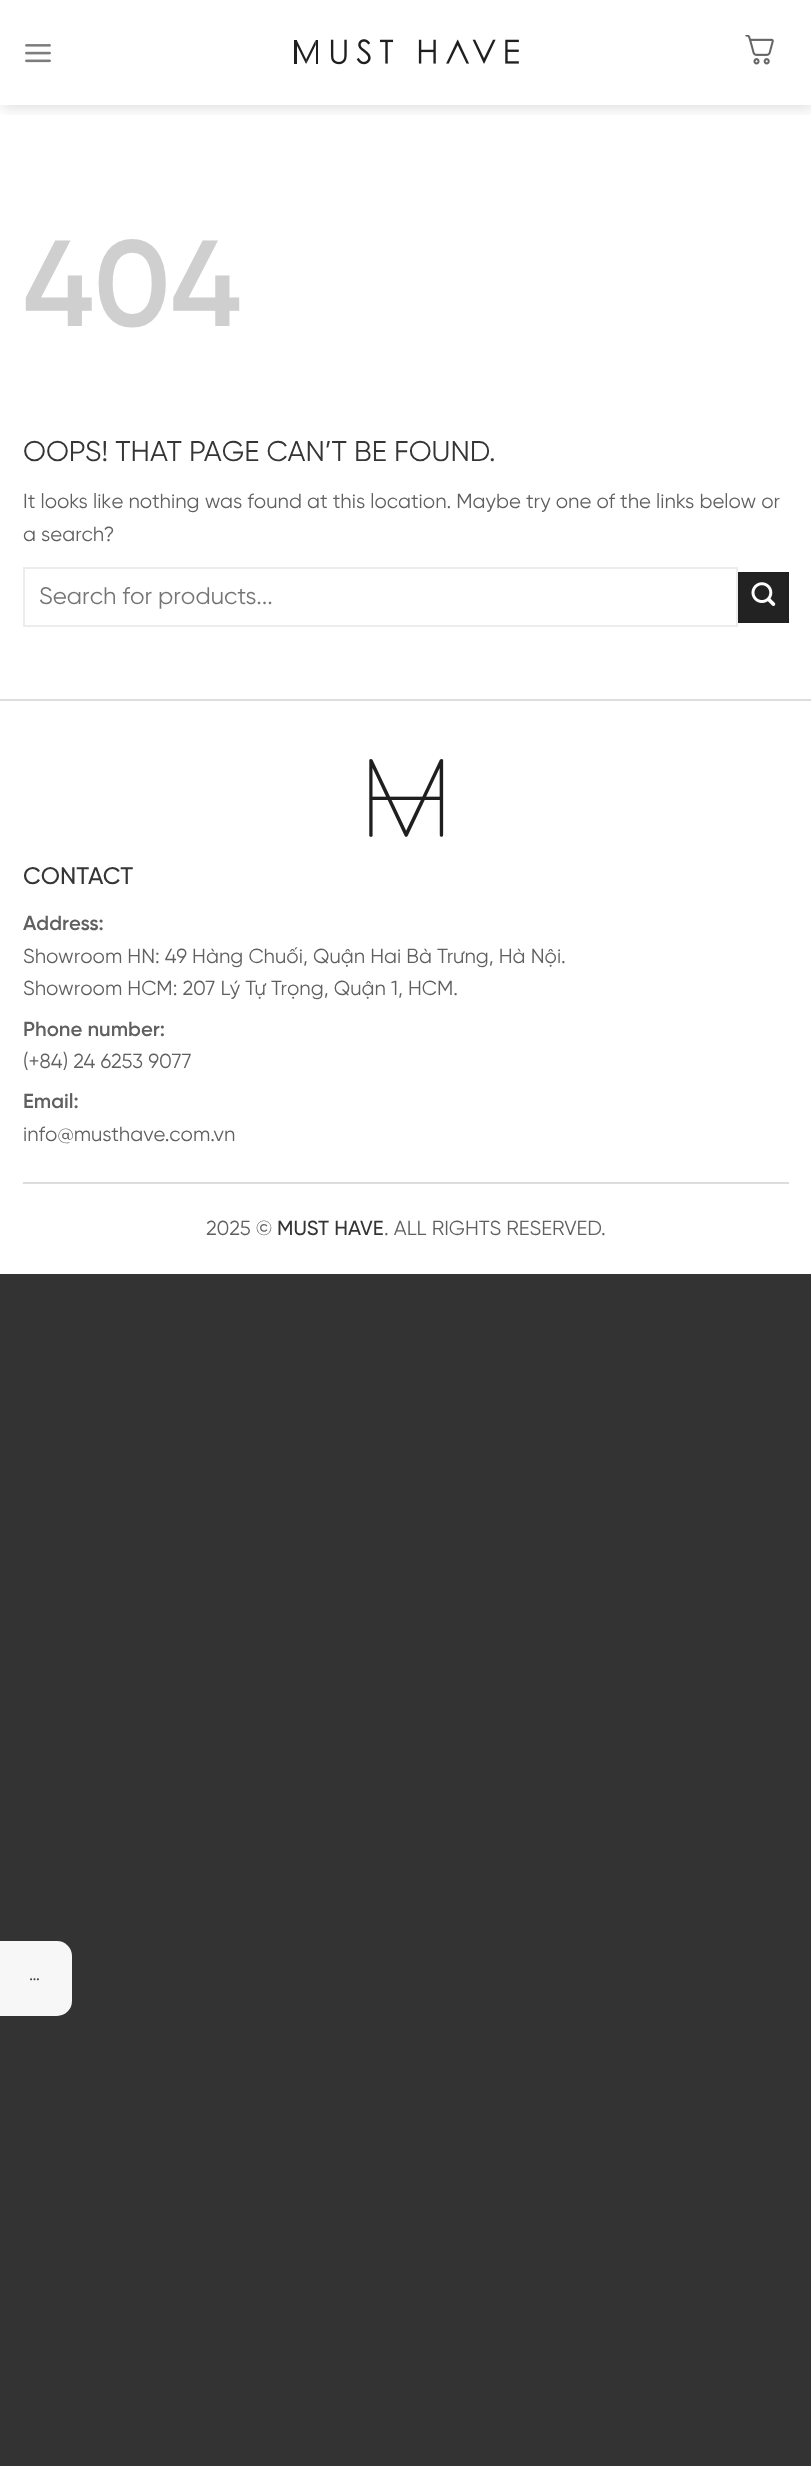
(async () => {
    const canvas = document.querySelector("canvas");
    canvas.width = 811;
    canvas.height = 2466;
    const context = canvas.getContext("2d");
    context.miterLimit = 4;
    context.fontKerning = "normal";
    function write(s, x, y, font, color) {
        context.font = font;
        context.fillStyle = color;
        context.fillText(s, x, y);
    }
    function block(x, y, w, h, color) {
        context.fillStyle = color;
        context.fillRect(x, y, w, h);
    }
    async function photo(src, x, y, w, h) {
        const img = new Image();
        img.src = src;
        await img.decode();
        context.drawImage(img, x, y, w, h);
    }

    block(0, 0, 811, 2466, "rgb(51, 51, 51)");
    block(0, 0, 811, 1274, "rgb(255, 255, 255)");
    context.save();
    context.beginPath();
    context.rect(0, 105, 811, 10);
    context.clip();
    context.fillStyle = "rgba(0, 0, 0, 0.15)";
    context.filter = "blur(7.5px)";
    context.beginPath();
    context.rect(2, 2, 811, 105);
    context.fill();
    context.filter = "none";
    context.restore();
    await photo("media/1.png", 25, 44, 26, 19);
    await photo("media/2.png", 294, 39, 225, 26);
    await photo("media/3.png", 745, 35, 29, 30);
    write("404", 23, 326, "600 122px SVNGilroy", "rgb(207, 207, 207)");
    write("OOPS! THAT PAGE CAN’T BE FOUND.", 23, 461, "28.5px SVNGilroy", "rgb(53, 53, 53)");
    write("It looks like nothing was found at this location. Maybe try one of the links below or", 23, 508, "20.4px SVNGilroy", "rgb(96, 96, 96)");
    write("a search?", 23, 541, "20.4px SVNGilroy", "rgb(96, 96, 96)");
    context.strokeStyle = "rgb(236, 236, 236)";
    context.lineWidth = 2;
    context.strokeRect(24, 568, 713, 58);
    write("Search for products...", 39, 604, "24px SVNGilroy", "rgb(117, 117, 117)");
    context.fillStyle = "rgb(34, 34, 34)";
    context.beginPath();
    context.rect(739, 573, 49, 49);
    context.fill();
    context.strokeStyle = "rgb(32, 32, 32)";
    context.stroke();
    await photo("media/4.png", 751, 582, 25, 24);
    block(0, 699, 811, 2, "rgb(221, 221, 221)");
    await photo("media/5.png", 369, 759, 75, 78);
    write("CONTACT", 23, 884, "500 24px SVNGilroy", "rgb(53, 53, 53)");
    write("Address:", 23, 930, "600 20.4px SVNGilroy", "rgb(96, 96, 96)");
    write("Showroom HN: 49 Hàng Chuối, Quận Hai Bà Trưng, Hà Nội.", 23, 963, "20.4px SVNGilroy", "rgb(96, 96, 96)");
    write("Showroom HCM: 207 Lý Tự Trọng, Quận 1, HCM.", 23, 995, "20.4px SVNGilroy", "rgb(96, 96, 96)");
    write("Phone number:", 23, 1036, "600 20.4px SVNGilroy", "rgb(96, 96, 96)");
    write("(+84) 24 6253 9077", 23, 1068, "20.4px SVNGilroy", "rgb(96, 96, 96)");
    write("Email:", 23, 1108, "600 20.4px SVNGilroy", "rgb(96, 96, 96)");
    write("info@musthave.com.vn", 23, 1141, "20.4px SVNGilroy", "rgb(96, 96, 96)");
    block(23, 1182, 766, 2, "rgb(221, 221, 221)");
    write("2025 ©", 206, 1235, "20.4px SVNGilroy", "rgb(96, 96, 96)");
    write("MUST HAVE", 277, 1235, "500 20.4px SVNGilroy", "rgb(53, 53, 53)");
    write(". ALL RIGHTS RESERVED.", 384, 1235, "20.4px SVNGilroy", "rgb(96, 96, 96)");
    context.fillStyle = "rgb(247, 247, 247)";
    context.beginPath();
    context.roundRect(0, 1941, 72, 75, [0, 15, 15, 0]);
    context.fill();
    write("…", 29, 1980, "18px SVNGilroy", "rgb(64, 64, 64)");
})();
